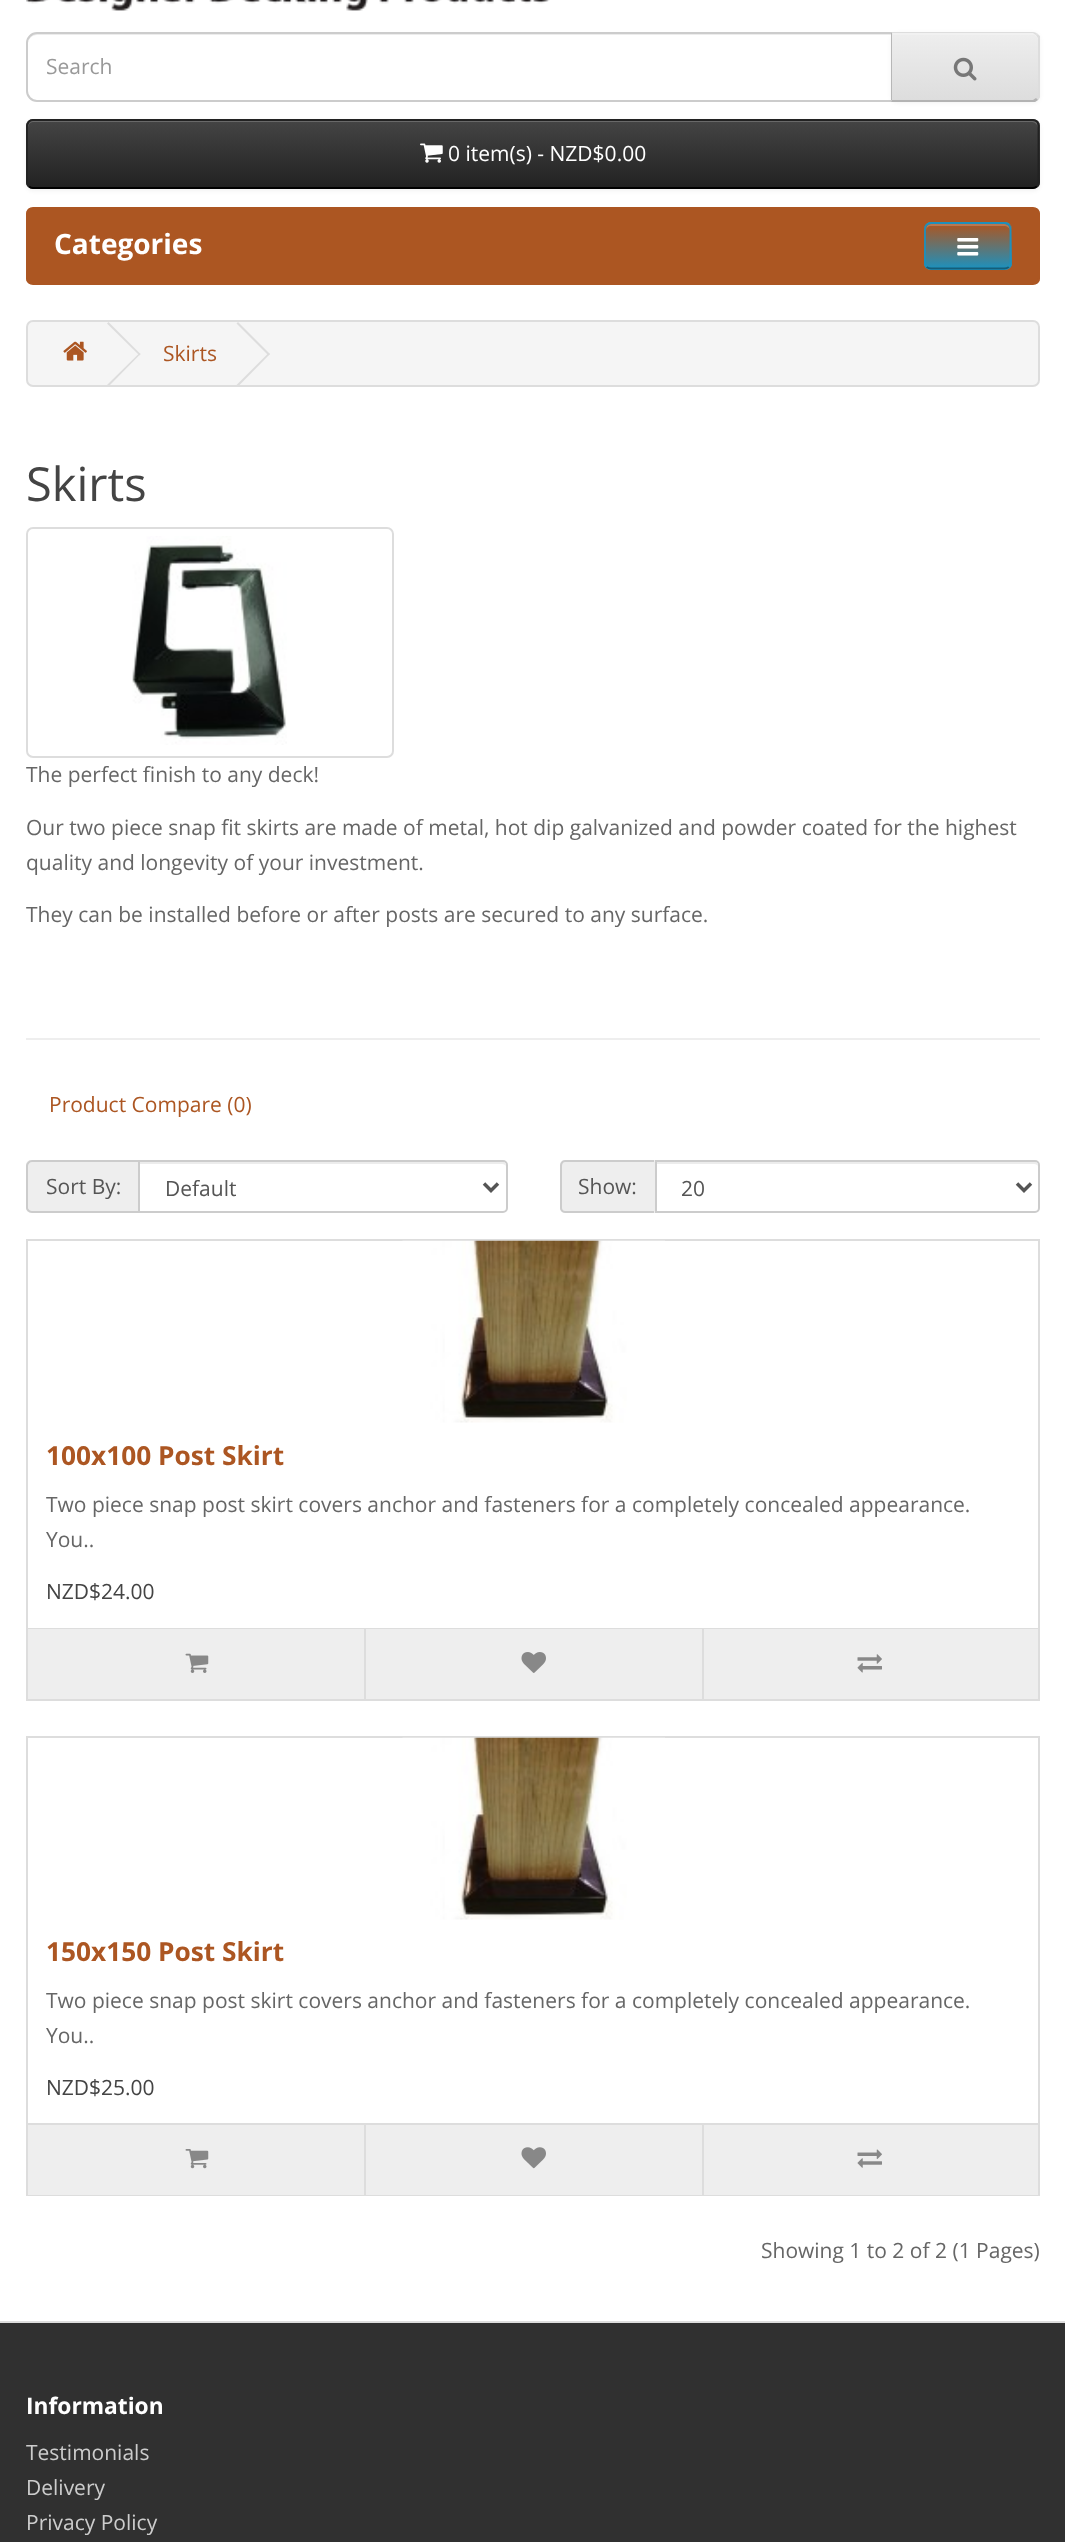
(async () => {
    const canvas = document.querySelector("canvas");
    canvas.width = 1065;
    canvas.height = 2542;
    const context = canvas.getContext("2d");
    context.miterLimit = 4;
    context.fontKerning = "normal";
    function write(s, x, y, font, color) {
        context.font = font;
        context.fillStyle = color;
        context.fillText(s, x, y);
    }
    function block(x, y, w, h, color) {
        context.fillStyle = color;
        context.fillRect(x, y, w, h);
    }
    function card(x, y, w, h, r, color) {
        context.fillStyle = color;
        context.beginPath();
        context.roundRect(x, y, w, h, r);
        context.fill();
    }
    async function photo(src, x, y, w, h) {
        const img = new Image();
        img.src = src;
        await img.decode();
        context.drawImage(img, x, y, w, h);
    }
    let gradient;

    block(0, 0, 1065, 2542, "rgb(255, 255, 255)");
    await photo("media/1.png", 26, 0, 524, 11);
    context.fillStyle = "rgb(236, 236, 236)";
    context.beginPath();
    context.moveTo(37, 35);
    context.lineTo(891, 35);
    context.lineTo(891, 33);
    context.lineTo(37, 33);
    context.bezierCurveTo(31, 33, 28, 38, 28, 44);
    context.bezierCurveTo(28, 39, 32, 35, 37, 35);
    context.closePath();
    context.fill();
    context.beginPath();
    context.roundRect(27, 33, 865, 68, [10, 0, 0, 10]);
    context.strokeStyle = "rgb(204, 204, 204)";
    context.lineWidth = 2;
    context.stroke();
    write("Search", 46, 74, "21px Open Sans", "rgb(153, 153, 153)");
    context.fillStyle = "rgba(0, 0, 0, 0.05)";
    context.filter = "blur(2px)";
    context.beginPath();
    context.roundRect(891, 33, 149, 70, 7);
    context.fill();
    context.filter = "none";
    context.fillStyle = "rgb(231, 231, 231)";
    context.beginPath();
    context.roundRect(891, 32, 149, 70, [0, 7, 7, 0]);
    context.fill();
    context.save();
    context.beginPath();
    context.roundRect(891, 32, 149, 70, [0, 7, 7, 0]);
    context.clip();
    gradient = context.createLinearGradient(965, 33, 965, 100);
    gradient.addColorStop(0, "rgb(238, 238, 238)");
    gradient.addColorStop(1, "rgb(221, 221, 221)");
    context.fillStyle = gradient;
    context.fillRect(892, 33, 148, 67);
    context.restore();
    context.fillStyle = "rgb(241, 241, 241)";
    context.beginPath();
    context.moveTo(893, 33);
    context.lineTo(893, 35);
    context.lineTo(1032, 35);
    context.bezierCurveTo(1035, 35, 1038, 37, 1038, 40);
    context.bezierCurveTo(1038, 37, 1037, 33, 1033, 33);
    context.closePath();
    context.fill();
    context.fillStyle = "rgb(221, 221, 221)";
    context.beginPath();
    context.moveTo(1037, 34);
    context.bezierCurveTo(1036, 33, 1034, 32, 1032, 32);
    context.lineTo(891, 32);
    context.lineTo(892, 33);
    context.lineTo(1033, 33);
    context.lineTo(1036, 35);
    context.closePath();
    context.fill();
    context.beginPath();
    context.moveTo(1037, 34);
    context.lineTo(1040, 36);
    context.lineTo(1040, 97);
    context.lineTo(1038, 100);
    context.lineTo(1036, 98);
    context.lineTo(1038, 95);
    context.lineTo(1038, 38);
    context.lineTo(1036, 35);
    context.closePath();
    context.fill();
    context.fillStyle = "rgb(179, 179, 179)";
    context.beginPath();
    context.moveTo(891, 102);
    context.lineTo(892, 100);
    context.lineTo(1033, 100);
    context.lineTo(1036, 98);
    context.lineTo(1038, 100);
    context.lineTo(1035, 102);
    context.closePath();
    context.fill();
    context.fillStyle = "rgb(183, 183, 183)";
    context.beginPath();
    context.moveTo(891, 32);
    context.lineTo(891, 101);
    context.lineTo(892, 100);
    context.lineTo(892, 33);
    context.closePath();
    context.fill();
    await photo("media/2.png", 953, 57, 24, 24);
    context.fillStyle = "rgba(0, 0, 0, 0.05)";
    context.filter = "blur(2px)";
    context.beginPath();
    context.roundRect(26, 121, 1014, 70, 7);
    context.fill();
    context.filter = "none";
    card(26, 119, 1014, 70, 7, "rgb(54, 54, 54)");
    context.save();
    context.beginPath();
    context.roundRect(26, 119, 1014, 70, 7);
    context.clip();
    gradient = context.createLinearGradient(533, 121, 533, 187);
    gradient.addColorStop(0, "rgb(68, 68, 68)");
    gradient.addColorStop(1, "rgb(34, 34, 34)");
    context.fillStyle = gradient;
    context.fillRect(26, 121, 1014, 66);
    context.restore();
    context.fillStyle = "rgb(105, 105, 105)";
    context.beginPath();
    context.moveTo(33, 122);
    context.lineTo(1032, 122);
    context.bezierCurveTo(1035, 122, 1038, 125, 1038, 128);
    context.lineTo(1038, 126);
    context.bezierCurveTo(1038, 123, 1036, 121, 1033, 121);
    context.lineTo(33, 121);
    context.bezierCurveTo(30, 121, 28, 123, 28, 126);
    context.lineTo(28, 128);
    context.bezierCurveTo(28, 125, 30, 122, 33, 122);
    context.closePath();
    context.fill();
    context.beginPath();
    context.moveTo(1037, 186.5);
    context.bezierCurveTo(1035.5, 187.5, 1034, 188, 1032.5, 188);
    context.lineTo(33, 188);
    context.bezierCurveTo(31.5, 188, 30, 187.5, 29, 186.5);
    context.strokeStyle = "rgb(0, 0, 0)";
    context.lineWidth = 1.8;
    context.stroke();
    context.beginPath();
    context.moveTo(29, 186.5);
    context.bezierCurveTo(28, 185, 27, 183.5, 27, 182);
    context.lineTo(27, 126);
    context.bezierCurveTo(27, 124.5, 28, 123, 29, 121.5);
    context.bezierCurveTo(30, 120.5, 31.5, 120, 33, 120);
    context.lineTo(1032.5, 120);
    context.bezierCurveTo(1034, 120, 1035.5, 120.5, 1037, 121.5);
    context.bezierCurveTo(1038, 123, 1038.5, 124.5, 1038.5, 126);
    context.lineTo(1038.5, 182);
    context.bezierCurveTo(1038.5, 183.5, 1038, 185, 1037, 186.5);
    context.strokeStyle = "rgb(34, 34, 34)";
    context.stroke();
    await photo("media/3.png", 420, 143, 23, 20);
    write("0 item(s) - NZD$0.00", 448, 161, "21px Open Sans", "rgb(255, 255, 255)");
    context.save();
    context.beginPath();
    context.roundRect(26, 207, 1014, 78, 7);
    context.clip();
    block(26, 208, 1014, 76, "rgb(172, 86, 34)");
    context.restore();
    context.beginPath();
    context.roundRect(27, 208, 1012, 76, 6);
    context.strokeStyle = "rgb(172, 86, 34)";
    context.lineWidth = 2;
    context.stroke();
    write("Categories", 54, 254, "bold 28px Open Sans", "rgb(255, 255, 255)");
    card(924, 222, 88, 48, 7, "rgb(34, 154, 200)");
    context.save();
    context.beginPath();
    context.roundRect(924, 222, 88, 48, 7);
    context.clip();
    gradient = context.createLinearGradient(968, 224, 968, 268);
    gradient.addColorStop(0, "rgb(172, 86, 34)");
    gradient.addColorStop(1, "rgb(31, 144, 187)");
    context.fillStyle = gradient;
    context.fillRect(924, 224, 88, 44);
    context.restore();
    context.fillStyle = "rgba(255, 255, 255, 0.2)";
    context.beginPath();
    context.moveTo(931, 226);
    context.lineTo(1004, 226);
    context.bezierCurveTo(1007, 226, 1010, 228, 1010, 231);
    context.bezierCurveTo(1010, 221, 1001, 224, 993, 224);
    context.lineTo(943, 224);
    context.bezierCurveTo(935, 224, 926, 221, 926, 231);
    context.bezierCurveTo(926, 228, 928, 226, 931, 226);
    context.closePath();
    context.fill();
    context.beginPath();
    context.moveTo(1009, 267);
    context.bezierCurveTo(1007.5, 268, 1006, 268.5, 1004.5, 268.5);
    context.lineTo(931, 268.5);
    context.bezierCurveTo(929.5, 268.5, 928, 268, 926.5, 267);
    context.strokeStyle = "rgb(20, 94, 122)";
    context.lineWidth = 1.8;
    context.stroke();
    context.beginPath();
    context.moveTo(926.5, 267);
    context.bezierCurveTo(925.5, 265.5, 925, 264, 925, 262.5);
    context.lineTo(925, 229);
    context.bezierCurveTo(925, 227.5, 925.5, 226, 926.5, 225);
    context.bezierCurveTo(928, 224, 929.5, 223, 931, 223);
    context.lineTo(1004.5, 223);
    context.bezierCurveTo(1006, 223, 1007.5, 224, 1009, 225);
    context.bezierCurveTo(1010, 226, 1010.5, 227.5, 1010.5, 229);
    context.lineTo(1010.5, 262.5);
    context.bezierCurveTo(1010.5, 264, 1010, 265.5, 1009, 267);
    context.strokeStyle = "rgb(31, 144, 187)";
    context.stroke();
    await photo("media/4.png", 957, 238, 22, 18);
    context.fillStyle = "rgb(245, 245, 245)";
    context.beginPath();
    context.roundRect(27, 321, 1012, 65, 6);
    context.fill();
    context.strokeStyle = "rgb(221, 221, 221)";
    context.lineWidth = 2;
    context.stroke();
    await photo("media/5.png", 63, 341, 24, 20);
    context.fillStyle = "rgb(221, 221, 221)";
    context.beginPath();
    context.moveTo(107, 323.5);
    context.lineTo(108.5, 322);
    context.lineTo(140.5, 354);
    context.lineTo(139.5, 355.5);
    context.closePath();
    context.fill();
    context.beginPath();
    context.moveTo(107, 385);
    context.lineTo(139.5, 353);
    context.lineTo(140.5, 354);
    context.lineTo(108.5, 386.5);
    context.closePath();
    context.fill();
    write("Skirts", 163, 361, "21px Open Sans", "rgb(172, 86, 34)");
    context.fillStyle = "rgb(221, 221, 221)";
    context.beginPath();
    context.moveTo(236.5, 323.5);
    context.lineTo(238, 322);
    context.lineTo(270, 354);
    context.lineTo(268.5, 355.5);
    context.closePath();
    context.fill();
    context.beginPath();
    context.moveTo(236.5, 385);
    context.lineTo(268.5, 353);
    context.lineTo(270, 354);
    context.lineTo(238, 386.5);
    context.closePath();
    context.fill();
    write("Skirts", 26, 501, "47px Open Sans", "rgb(68, 68, 68)");
    context.beginPath();
    context.roundRect(27, 528, 366, 229, 6);
    context.stroke();
    await photo("media/6.png", 132, 536, 155, 209);
    write("The perfect finish to any deck!", 26, 782, "21px Open Sans", "rgb(102, 102, 102)");
    write("Our two piece snap fit skirts are made of metal, hot dip galvanized and powder coated for the highest", 26, 835, "21px Open Sans", "rgb(102, 102, 102)");
    write("quality and longevity of your investment.", 26, 870, "21px Open Sans", "rgb(102, 102, 102)");
    write("They can be installed before or after posts are secured to any surface.", 26, 922, "21px Open Sans", "rgb(102, 102, 102)");
    block(26, 1038, 1014, 2, "rgb(238, 238, 238)");
    write("Product Compare (0)", 49, 1112, "21px Open Sans", "rgb(172, 86, 34)");
    context.fillStyle = "rgb(238, 238, 238)";
    context.beginPath();
    context.roundRect(26, 1160, 112, 53, [5, 0, 0, 5]);
    context.fill();
    context.fillStyle = "rgb(204, 204, 204)";
    context.beginPath();
    context.moveTo(32, 1160);
    context.lineTo(138, 1160);
    context.lineTo(138, 1213);
    context.lineTo(32, 1213);
    context.bezierCurveTo(29, 1213, 26, 1210, 26, 1208);
    context.lineTo(26, 1166);
    context.bezierCurveTo(26, 1163, 29, 1160, 32, 1160);
    context.closePath();
    context.moveTo(32, 1162);
    context.lineTo(138, 1162);
    context.lineTo(138, 1211);
    context.lineTo(32, 1211);
    context.bezierCurveTo(30, 1211, 28, 1209, 28, 1208);
    context.lineTo(28, 1166);
    context.bezierCurveTo(28, 1164, 30, 1162, 32, 1162);
    context.closePath();
    context.fill("evenodd");
    write("Sort By:", 46, 1194, "21px Open Sans", "rgb(85, 85, 85)");
    context.fillStyle = "rgb(236, 236, 236)";
    context.beginPath();
    context.moveTo(140, 1164);
    context.lineTo(502, 1164);
    context.bezierCurveTo(504, 1164, 506, 1165, 506, 1167);
    context.bezierCurveTo(506, 1164, 505, 1162, 502, 1162);
    context.lineTo(140, 1162);
    context.closePath();
    context.fill();
    context.beginPath();
    context.roundRect(139, 1161, 368, 51, [0, 4, 4, 0]);
    context.strokeStyle = "rgb(204, 204, 204)";
    context.stroke();
    context.beginPath();
    context.moveTo(484, 1183.5);
    context.lineTo(491, 1190.5);
    context.lineTo(498, 1183.5);
    context.strokeStyle = "rgb(85, 85, 85)";
    context.lineWidth = 3.5;
    context.stroke();
    write("Default", 165, 1196, "21px Open Sans", "rgb(85, 85, 85)");
    context.fillStyle = "rgb(238, 238, 238)";
    context.beginPath();
    context.roundRect(560, 1160, 95, 53, [5, 0, 0, 5]);
    context.fill();
    context.fillStyle = "rgb(204, 204, 204)";
    context.beginPath();
    context.moveTo(565, 1160);
    context.lineTo(654, 1160);
    context.lineTo(654, 1213);
    context.lineTo(565, 1213);
    context.bezierCurveTo(562, 1213, 560, 1210, 560, 1208);
    context.lineTo(560, 1166);
    context.bezierCurveTo(560, 1163, 562, 1160, 565, 1160);
    context.closePath();
    context.moveTo(565, 1162);
    context.lineTo(654, 1162);
    context.lineTo(654, 1211);
    context.lineTo(565, 1211);
    context.bezierCurveTo(563, 1211, 562, 1209, 562, 1208);
    context.lineTo(562, 1166);
    context.bezierCurveTo(562, 1164, 563, 1162, 565, 1162);
    context.closePath();
    context.fill("evenodd");
    write("Show:", 578, 1194, "21px Open Sans", "rgb(85, 85, 85)");
    context.fillStyle = "rgb(236, 236, 236)";
    context.beginPath();
    context.moveTo(656, 1164);
    context.lineTo(1034, 1164);
    context.bezierCurveTo(1036, 1164, 1038, 1165, 1038, 1167);
    context.bezierCurveTo(1038, 1164, 1037, 1162, 1034, 1162);
    context.lineTo(656, 1162);
    context.closePath();
    context.fill();
    context.beginPath();
    context.roundRect(656, 1161, 383, 51, [0, 4, 4, 0]);
    context.strokeStyle = "rgb(204, 204, 204)";
    context.lineWidth = 2;
    context.stroke();
    context.beginPath();
    context.moveTo(1017, 1183.5);
    context.lineTo(1024, 1190.5);
    context.lineTo(1031, 1183.5);
    context.strokeStyle = "rgb(85, 85, 85)";
    context.lineWidth = 3.5;
    context.stroke();
    write("20", 681, 1196, "21px Open Sans", "rgb(85, 85, 85)");
    context.strokeStyle = "rgb(221, 221, 221)";
    context.lineWidth = 2;
    context.strokeRect(27, 1240, 1012, 460);
    await photo("media/7.png", 402, 1240, 263, 183);
    write("100x100 Post Skirt", 46, 1465, "bold 26.25px Open Sans", "rgb(172, 86, 34)");
    write("Two piece snap post skirt covers anchor and fasteners for a completely concealed appearance.", 46, 1512, "21px Open Sans", "rgb(102, 102, 102)");
    write("You..", 46, 1547, "21px Open Sans", "rgb(102, 102, 102)");
    write("NZD$24.00", 46, 1599, "21px Open Sans", "rgb(68, 68, 68)");
    block(28, 1628, 1010, 1, "rgb(221, 221, 221)");
    block(28, 1629, 336, 70, "rgb(238, 238, 238)");
    await photo("media/8.png", 185, 1653, 24, 20);
    block(366, 1629, 336, 70, "rgb(238, 238, 238)");
    block(364, 1629, 2, 70, "rgb(221, 221, 221)");
    await photo("media/9.png", 521, 1652, 25, 21);
    block(704, 1629, 334, 70, "rgb(238, 238, 238)");
    block(702, 1629, 2, 70, "rgb(221, 221, 221)");
    await photo("media/10.png", 857, 1654, 25, 19);
    context.strokeRect(27, 1737, 1012, 458);
    await photo("media/7.png", 402, 1737, 263, 183);
    write("150x150 Post Skirt", 46, 1961, "bold 26.25px Open Sans", "rgb(172, 86, 34)");
    write("Two piece snap post skirt covers anchor and fasteners for a completely concealed appearance.", 46, 2008, "21px Open Sans", "rgb(102, 102, 102)");
    write("You..", 46, 2043, "21px Open Sans", "rgb(102, 102, 102)");
    write("NZD$25.00", 46, 2095, "21px Open Sans", "rgb(68, 68, 68)");
    block(28, 2125, 1010, 70, "rgb(238, 238, 238)");
    block(28, 2123, 1010, 2, "rgb(221, 221, 221)");
    await photo("media/11.png", 185, 2149, 24, 20);
    block(364, 2125, 2, 70, "rgb(221, 221, 221)");
    await photo("media/12.png", 521, 2147, 25, 22);
    block(702, 2125, 2, 70, "rgb(221, 221, 221)");
    await photo("media/13.png", 857, 2149, 25, 19);
    write("Showing 1 to 2 of 2 (1 Pages)", 761, 2258, "21px Open Sans", "rgb(102, 102, 102)");
    block(0, 2323, 1065, 219, "rgb(48, 48, 48)");
    block(0, 2321, 1065, 2, "rgb(221, 221, 221)");
    write("Information", 26, 2414, "bold 22.75px Open Sans", "rgb(255, 255, 255)");
    write("Testimonials", 26, 2460, "21px Open Sans", "rgb(204, 204, 204)");
    write("Delivery", 26, 2495, "21px Open Sans", "rgb(204, 204, 204)");
    write("Privacy Policy", 26, 2530, "21px Open Sans", "rgb(204, 204, 204)");
})();
